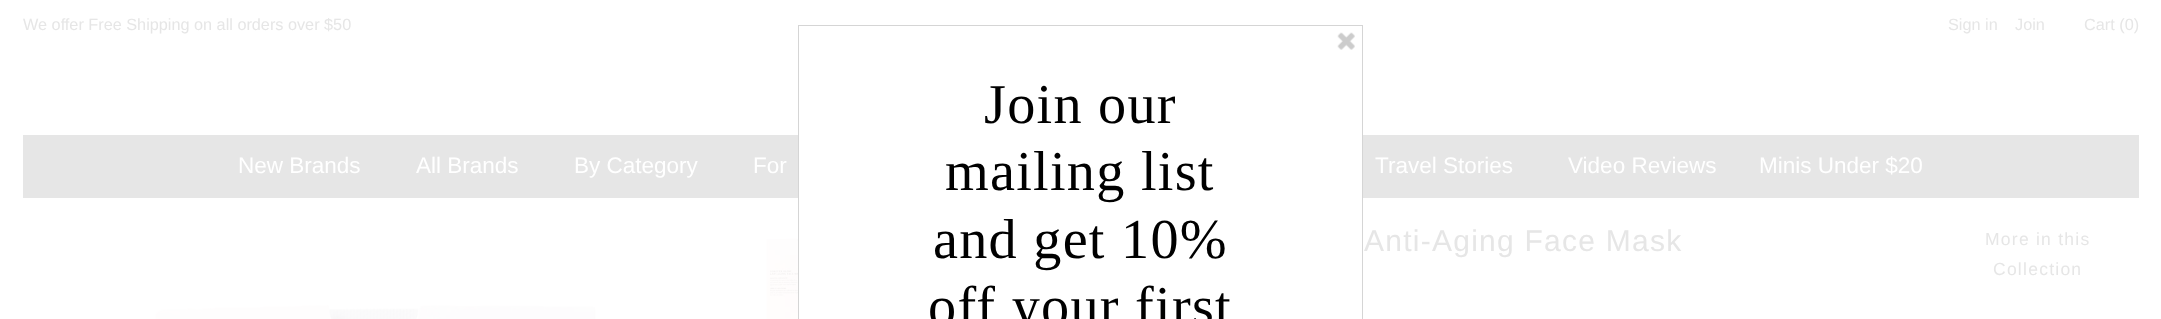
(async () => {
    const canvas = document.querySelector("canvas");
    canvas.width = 2161;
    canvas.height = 319;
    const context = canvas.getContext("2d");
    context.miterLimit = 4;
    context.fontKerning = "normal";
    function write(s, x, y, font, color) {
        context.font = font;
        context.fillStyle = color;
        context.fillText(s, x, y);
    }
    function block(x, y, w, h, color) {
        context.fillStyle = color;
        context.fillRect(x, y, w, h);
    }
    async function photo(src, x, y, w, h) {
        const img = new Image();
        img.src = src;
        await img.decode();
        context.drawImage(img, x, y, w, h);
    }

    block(0, 0, 2161, 319, "rgb(255, 255, 255)");
    write("We offer Free Shipping on all orders over $50", 23, 30, "16.25px Liberation Sans", "rgb(230, 230, 230)");
    write("Sign in", 1948, 30, "16.25px Liberation Sans", "rgb(230, 230, 230)");
    write("Join", 2015, 30, "16.25px Liberation Sans", "rgb(230, 230, 230)");
    write("Cart (0)", 2084, 30, "16.25px Liberation Sans", "rgb(230, 230, 230)");
    block(23, 135, 2116, 63, "rgb(230, 230, 230)");
    block(799, 135, 563, 63, "rgb(255, 255, 255)");
    context.strokeStyle = "rgb(213, 213, 213)";
    context.strokeRect(798.5, 25.5, 564, 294);
    await photo("media/1.png", 1337, 32, 18, 18);
    context.letterSpacing = "1.25px";
    write("Join our", 984, 123, "56.25px Liberation Serif", "rgb(0, 0, 0)");
    write("mailing list", 945, 190, "56.25px Liberation Serif", "rgb(0, 0, 0)");
    write("and get 10%", 933, 258, "56.25px Liberation Serif", "rgb(0, 0, 0)");
    write("off your first", 928, 325, "56.25px Liberation Serif", "rgb(0, 0, 0)");
    context.letterSpacing = "0px";
    write("New Brands", 238, 173, "22.5px Liberation Sans", "rgb(255, 255, 255)");
    write("All Brands", 416, 173, "22.5px Liberation Sans", "rgb(255, 255, 255)");
    write("By Category", 574, 173, "22.5px Liberation Sans", "rgb(255, 255, 255)");
    write("For", 753, 173, "22.5px Liberation Sans", "rgb(255, 255, 255)");
    write("Travel Stories", 1375, 173, "22.5px Liberation Sans", "rgb(255, 255, 255)");
    write("Video Reviews", 1568, 173, "22.5px Liberation Sans", "rgb(255, 255, 255)");
    write("Minis Under $20", 1759, 173, "22.5px Liberation Sans", "rgb(255, 255, 255)");
    await photo("media/2.png", 155, 305, 441, 14);
    await photo("media/3.png", 765, 237, 33, 82);
    context.letterSpacing = "1.25px";
    write("Anti-Aging Face Mask", 1364, 251, "30px Liberation Sans", "rgb(230, 230, 230)");
    write("More in this", 1985, 245, "17.5px Liberation Sans", "rgb(230, 230, 230)");
    write("Collection", 1993, 275, "17.5px Liberation Sans", "rgb(230, 230, 230)");
})();
